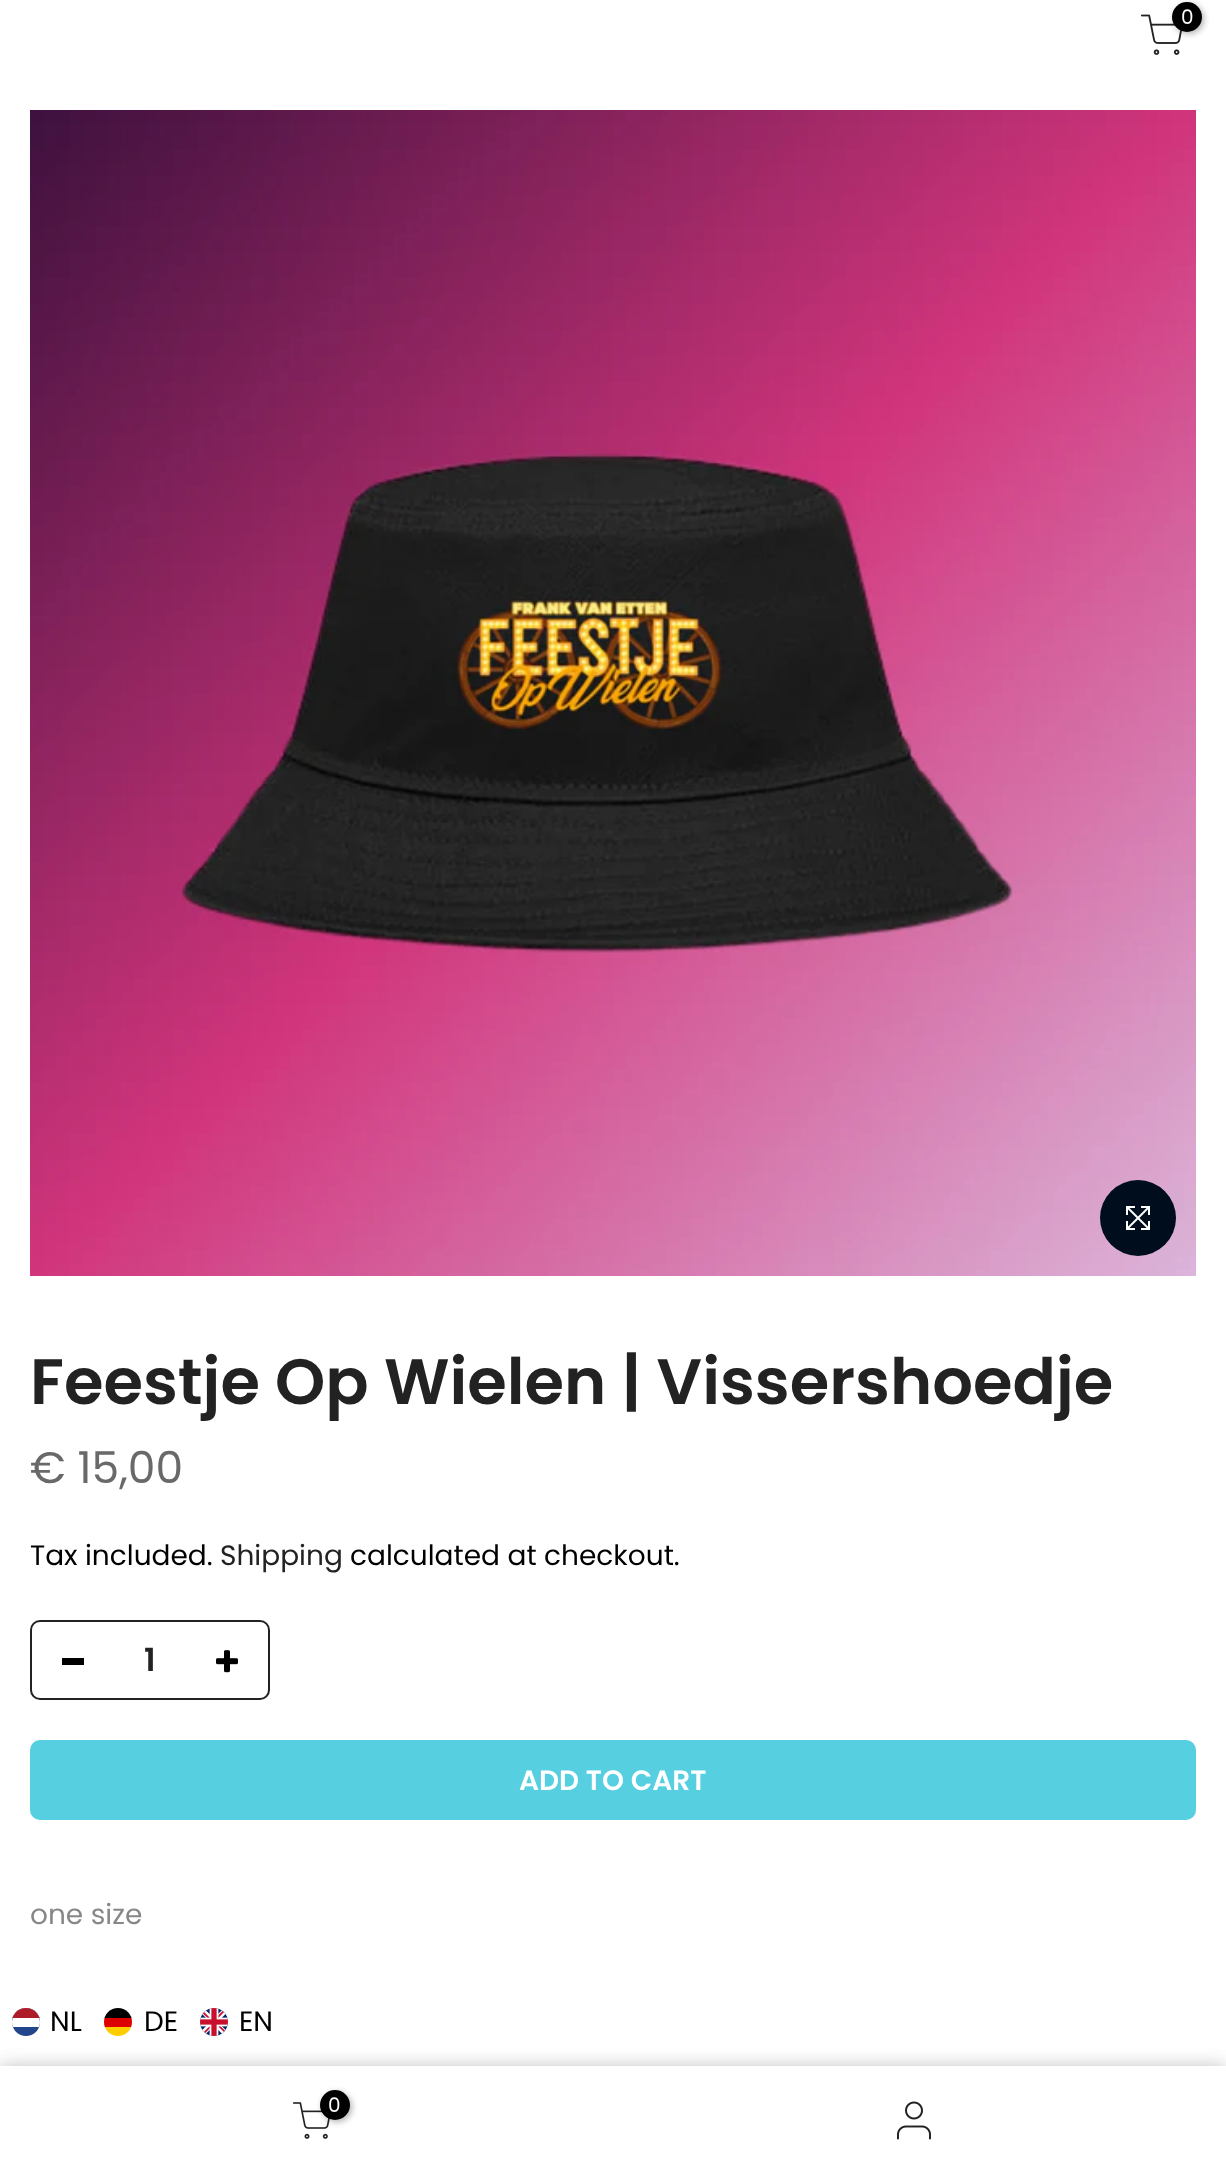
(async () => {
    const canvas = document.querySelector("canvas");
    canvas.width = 1226;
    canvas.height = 2175;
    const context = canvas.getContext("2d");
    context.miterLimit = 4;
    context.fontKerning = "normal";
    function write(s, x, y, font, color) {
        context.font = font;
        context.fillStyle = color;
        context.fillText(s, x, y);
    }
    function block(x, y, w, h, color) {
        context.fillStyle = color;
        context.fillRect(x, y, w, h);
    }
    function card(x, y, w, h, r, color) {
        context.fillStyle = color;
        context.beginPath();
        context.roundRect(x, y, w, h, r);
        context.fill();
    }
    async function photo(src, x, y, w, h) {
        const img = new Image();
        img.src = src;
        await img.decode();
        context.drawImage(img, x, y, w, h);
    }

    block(0, 0, 1226, 2175, "rgb(255, 255, 255)");
    await photo("media/1.png", 1140, 14, 42, 41);
    context.fillStyle = "rgba(0, 0, 0, 0.3)";
    context.filter = "blur(3px)";
    context.beginPath();
    context.roundRect(1174, 4, 30, 30, 15);
    context.fill();
    context.filter = "none";
    context.fillStyle = "rgb(0, 0, 0)";
    context.beginPath();
    context.arc(1187, 17, 15, 0, Math.PI * 2);
    context.fill();
    write("0", 1181, 24, "20px Poppins", "rgb(255, 255, 255)");
    await photo("media/2.png", 30, 110, 1166, 1166);
    context.fillStyle = "rgb(0, 13, 29)";
    context.beginPath();
    context.arc(1138, 1218, 38, 0, Math.PI * 2);
    context.fill();
    await photo("media/3.png", 1126, 1206, 24, 24);
    write("Feestje Op Wielen | Vissershoedje", 30, 1404, "600 64px Poppins", "rgb(34, 34, 34)");
    write("€ 15,00", 30, 1483, "44px Poppins", "rgb(105, 105, 105)");
    write("Tax included.", 30, 1565, "28px Poppins", "rgb(0, 0, 0)");
    write("Shipping", 220, 1565, "28px Poppins", "rgb(34, 34, 34)");
    write("calculated at checkout.", 350, 1565, "28px Poppins", "rgb(0, 0, 0)");
    context.beginPath();
    context.roundRect(31, 1621, 238, 78, 9);
    context.strokeStyle = "rgb(34, 34, 34)";
    context.lineWidth = 2;
    context.stroke();
    write("1", 144, 1671, "600 32px Poppins", "rgb(34, 34, 34)");
    block(62, 1658, 22, 7, "rgb(0, 0, 0)");
    await photo("media/4.png", 216, 1650, 22, 23);
    card(30, 1740, 1166, 80, 10, "rgb(86, 207, 225)");
    write("ADD TO CART", 519, 1790, "600 28px Poppins", "rgb(255, 255, 255)");
    write("one size", 30, 1924, "28px Poppins", "rgb(135, 135, 135)");
    context.fillStyle = "rgb(33, 70, 139)";
    context.beginPath();
    context.arc(26, 2022, 14, 0, Math.PI * 2);
    context.fill();
    context.save();
    context.beginPath();
    context.roundRect(12, 2008, 28, 28, 14);
    context.clip();
    context.fillStyle = "rgb(255, 255, 255)";
    context.beginPath();
    context.roundRect(12, 2008, 28, 19, [14, 14, 0, 0]);
    context.fill();
    block(12, 2008, 28, 10, "rgb(174, 28, 40)");
    context.restore();
    write("NL", 50, 2031, "28px Poppins", "rgb(0, 0, 0)");
    context.save();
    context.beginPath();
    context.roundRect(104, 2008, 28, 28, 14);
    context.clip();
    block(105, 2027, 26, 9, "rgb(255, 206, 0)");
    block(104, 2008, 28, 10, "rgb(0, 0, 0)");
    block(104, 2018, 28, 9, "rgb(221, 0, 0)");
    context.restore();
    write("DE", 144, 2031, "28px Poppins", "rgb(0, 0, 0)");
    await photo("media/5.png", 200, 2008, 28, 28);
    write("EN", 239, 2031, "28px Poppins", "rgb(0, 0, 0)");
    context.fillStyle = "rgba(0, 0, 0, 0.12)";
    context.filter = "blur(9px)";
    context.beginPath();
    context.rect(0, 2066, 1226, 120);
    context.fill();
    context.filter = "none";
    context.filter = "blur(9px)";
    context.beginPath();
    context.rect(0, 2066, 1226, 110);
    context.fill();
    context.filter = "none";
    block(0, 2066, 1226, 109, "rgb(255, 255, 255)");
    await photo("media/6.png", 292, 2102, 38, 37);
    context.fillStyle = "rgba(0, 0, 0, 0.3)";
    context.filter = "blur(3px)";
    context.beginPath();
    context.roundRect(322, 2092, 30, 30, 15);
    context.fill();
    context.filter = "none";
    context.fillStyle = "rgb(0, 0, 0)";
    context.beginPath();
    context.arc(335, 2105, 15, 0, Math.PI * 2);
    context.fill();
    write("0", 328, 2112, "20px Poppins", "rgb(255, 255, 255)");
    await photo("media/7.png", 897, 2101, 34, 39);
})();
